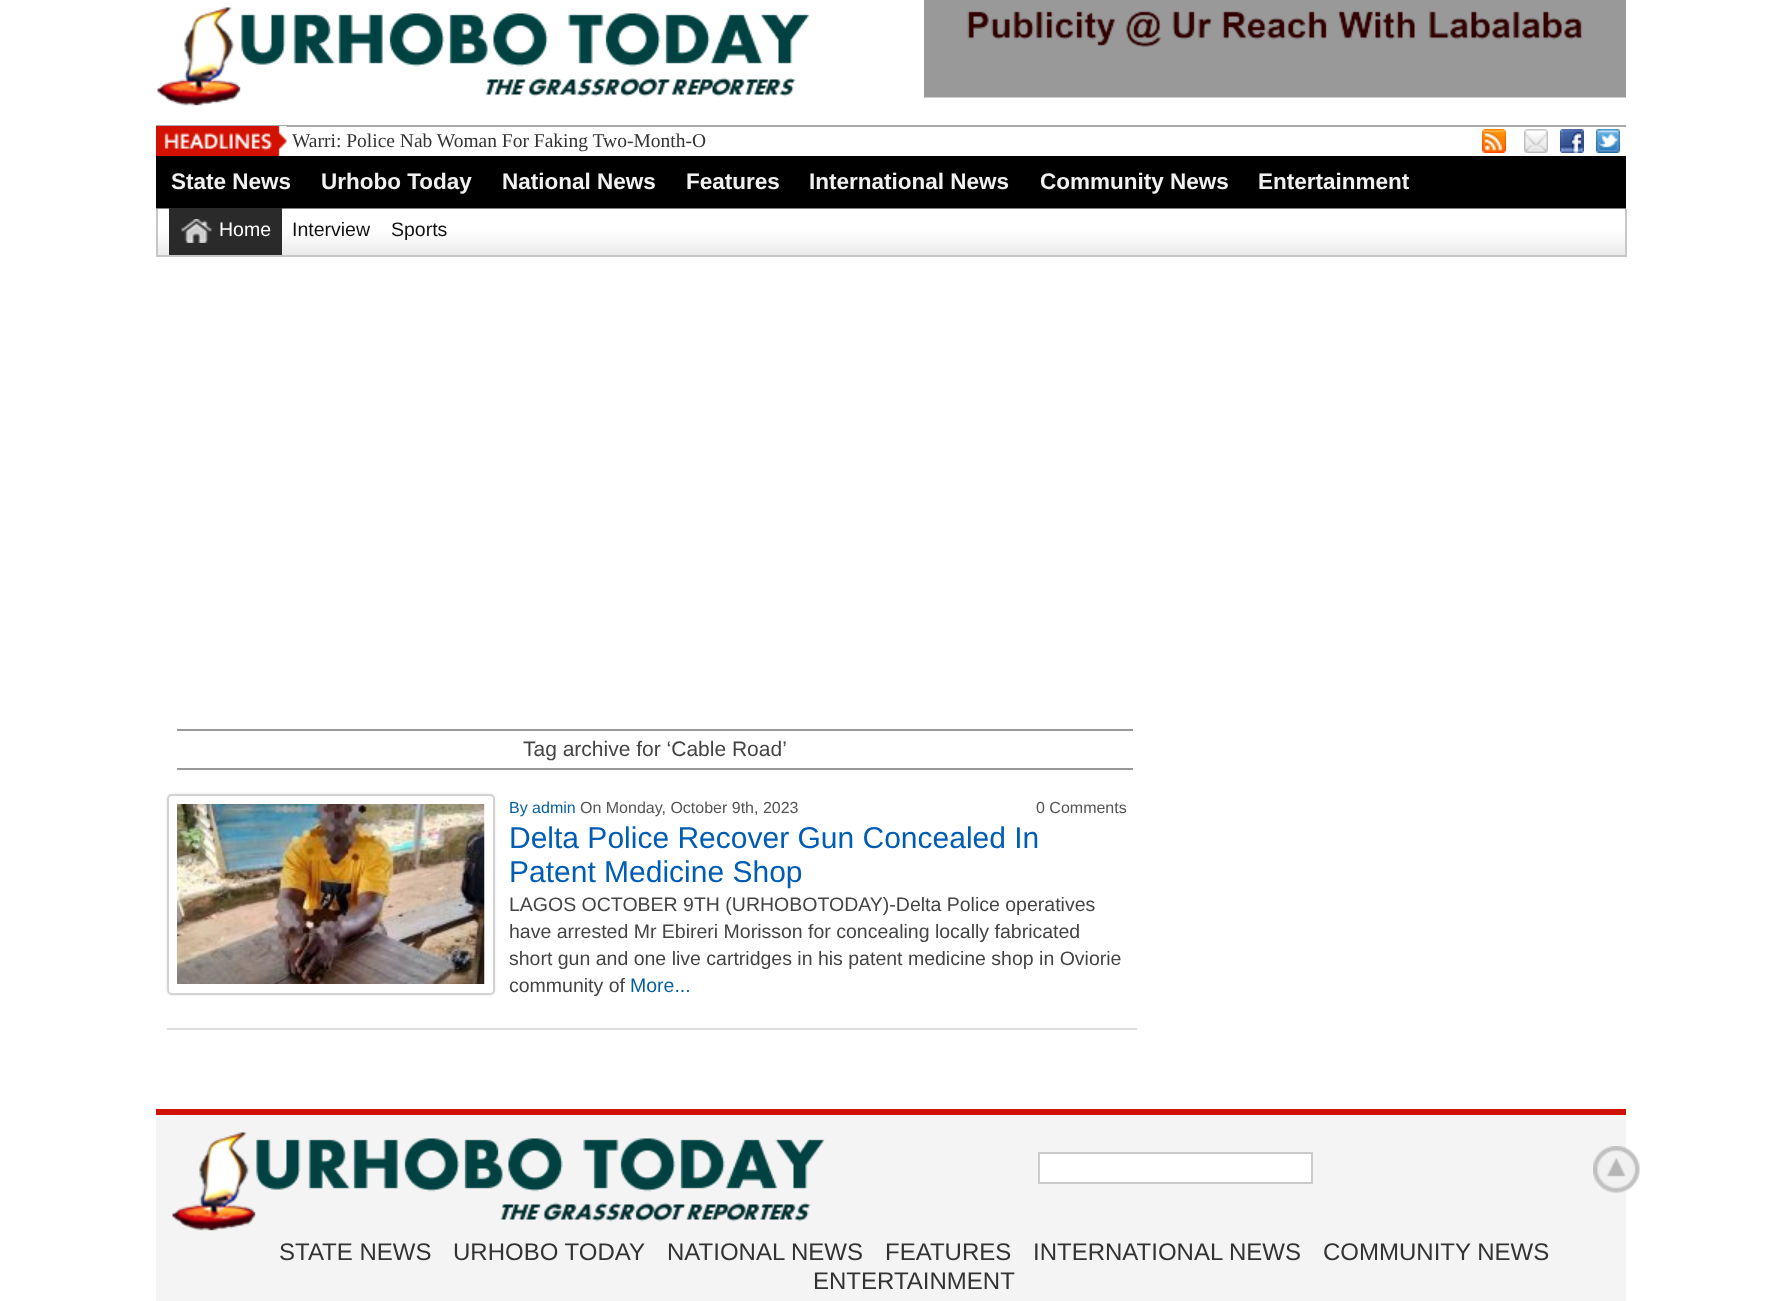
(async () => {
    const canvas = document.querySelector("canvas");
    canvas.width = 1781;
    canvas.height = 1301;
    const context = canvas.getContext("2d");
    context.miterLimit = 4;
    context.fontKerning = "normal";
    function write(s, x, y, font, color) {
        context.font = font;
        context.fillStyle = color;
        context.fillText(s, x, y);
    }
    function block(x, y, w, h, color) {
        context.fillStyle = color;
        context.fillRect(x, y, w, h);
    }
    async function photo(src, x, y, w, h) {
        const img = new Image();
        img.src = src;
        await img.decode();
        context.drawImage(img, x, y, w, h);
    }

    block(0, 0, 1781, 1301, "rgb(255, 255, 255)");
    await photo("media/1.png", 157, 7, 653, 99);
    await photo("media/2.png", 924, 0, 702, 98);
    block(156, 125, 1470, 2, "rgb(168, 168, 168)");
    await photo("media/3.png", 156, 126, 131, 30);
    write("Warri: Police Nab Woman For Faking Two-Month-O", 292, 147, "19.5px Liberation Serif", "rgb(51, 51, 51)");
    await photo("media/4.png", 1482, 129, 24, 24);
    await photo("media/5.png", 1524, 129, 24, 24);
    await photo("media/6.png", 1560, 129, 24, 24);
    await photo("media/7.png", 1596, 129, 24, 24);
    block(156, 156, 1470, 53, "rgb(0, 0, 0)");
    write("State News", 171, 189, "bold 22.5px Liberation Sans", "rgb(241, 241, 241)");
    write("Urhobo Today", 321, 189, "bold 22.5px Liberation Sans", "rgb(241, 241, 241)");
    write("National News", 502, 189, "bold 22.5px Liberation Sans", "rgb(241, 241, 241)");
    write("Features", 686, 189, "bold 22.5px Liberation Sans", "rgb(241, 241, 241)");
    write("International News", 809, 189, "bold 22.5px Liberation Sans", "rgb(241, 241, 241)");
    write("Community News", 1040, 189, "bold 22.5px Liberation Sans", "rgb(241, 241, 241)");
    write("Entertainment", 1258, 189, "bold 22.5px Liberation Sans", "rgb(241, 241, 241)");
    await photo("media/8.png", 156, 208, 1470, 47);
    block(1625, 209, 2, 48, "rgb(197, 200, 203)");
    block(156, 255, 1470, 2, "rgb(197, 200, 203)");
    block(156, 209, 2, 48, "rgb(197, 200, 203)");
    block(169, 208, 113, 47, "rgb(42, 42, 42)");
    await photo("media/9.png", 181, 219, 31, 24);
    write("Home", 219, 236, "19.5px Liberation Sans", "rgb(255, 255, 255)");
    write("Interview", 292, 236, "19.5px Liberation Sans", "rgb(17, 17, 17)");
    write("Sports", 391, 236, "19.5px Liberation Sans", "rgb(17, 17, 17)");
    block(177, 729, 956, 2, "rgb(153, 153, 153)");
    block(177, 768, 956, 2, "rgb(153, 153, 153)");
    write("Tag archive for ‘Cable Road’", 523, 756, "21px Liberation Sans", "rgb(68, 68, 68)");
    block(167, 1028, 970, 2, "rgb(221, 221, 221)");
    context.fillStyle = "rgb(229, 229, 229)";
    context.filter = "blur(1.5px)";
    context.beginPath();
    context.roundRect(167, 794, 328, 201, 5);
    context.fill();
    context.filter = "none";
    context.fillStyle = "rgb(255, 255, 255)";
    context.beginPath();
    context.roundRect(168, 795, 326, 199, 4);
    context.fill();
    context.strokeStyle = "rgb(210, 210, 210)";
    context.lineWidth = 2;
    context.stroke();
    await photo("media/10.png", 177, 804, 308, 180);
    write("By admin", 509, 813, "16px Liberation Sans", "rgb(4, 95, 159)");
    write("On Monday, October 9th, 2023", 580, 813, "16px Liberation Sans", "rgb(85, 85, 85)");
    write("0 Comments", 1036, 813, "16px Liberation Sans", "rgb(85, 85, 85)");
    write("Delta Police Recover Gun Concealed In", 509, 848, "30px Liberation Sans", "rgb(0, 93, 181)");
    write("Patent Medicine Shop", 509, 882, "30px Liberation Sans", "rgb(0, 93, 181)");
    write("LAGOS OCTOBER 9TH (URHOBOTODAY)-Delta Police operatives", 509, 911, "19.5px Liberation Sans", "rgb(68, 68, 68)");
    write("have arrested Mr Ebireri Morisson for concealing locally fabricated", 509, 938, "19.5px Liberation Sans", "rgb(68, 68, 68)");
    write("short gun and one live cartridges in his patent medicine shop in Oviorie", 509, 965, "19.5px Liberation Sans", "rgb(68, 68, 68)");
    write("community of", 509, 992, "19.5px Liberation Sans", "rgb(68, 68, 68)");
    write("More...", 630, 992, "19.5px Liberation Sans", "rgb(4, 95, 159)");
    block(156, 1115, 1470, 186, "rgb(244, 244, 244)");
    block(156, 1109, 1470, 6, "rgb(210, 17, 0)");
    await photo("media/11.png", 172, 1132, 653, 99);
    context.fillStyle = "rgb(255, 255, 255)";
    context.beginPath();
    context.rect(1039, 1153, 273, 30);
    context.fill();
    context.strokeStyle = "rgb(204, 204, 204)";
    context.stroke();
    await photo("media/12.png", 1593, 1146, 47, 47);
    write("STATE NEWS", 279, 1260, "24px Liberation Sans", "rgb(51, 51, 51)");
    write("URHOBO TODAY", 453, 1260, "24px Liberation Sans", "rgb(51, 51, 51)");
    write("NATIONAL NEWS", 667, 1260, "24px Liberation Sans", "rgb(51, 51, 51)");
    write("FEATURES", 885, 1260, "24px Liberation Sans", "rgb(51, 51, 51)");
    write("INTERNATIONAL NEWS", 1033, 1260, "24px Liberation Sans", "rgb(51, 51, 51)");
    write("COMMUNITY NEWS", 1323, 1260, "24px Liberation Sans", "rgb(51, 51, 51)");
    write("ENTERTAINMENT", 813, 1289, "24px Liberation Sans", "rgb(51, 51, 51)");
})();
